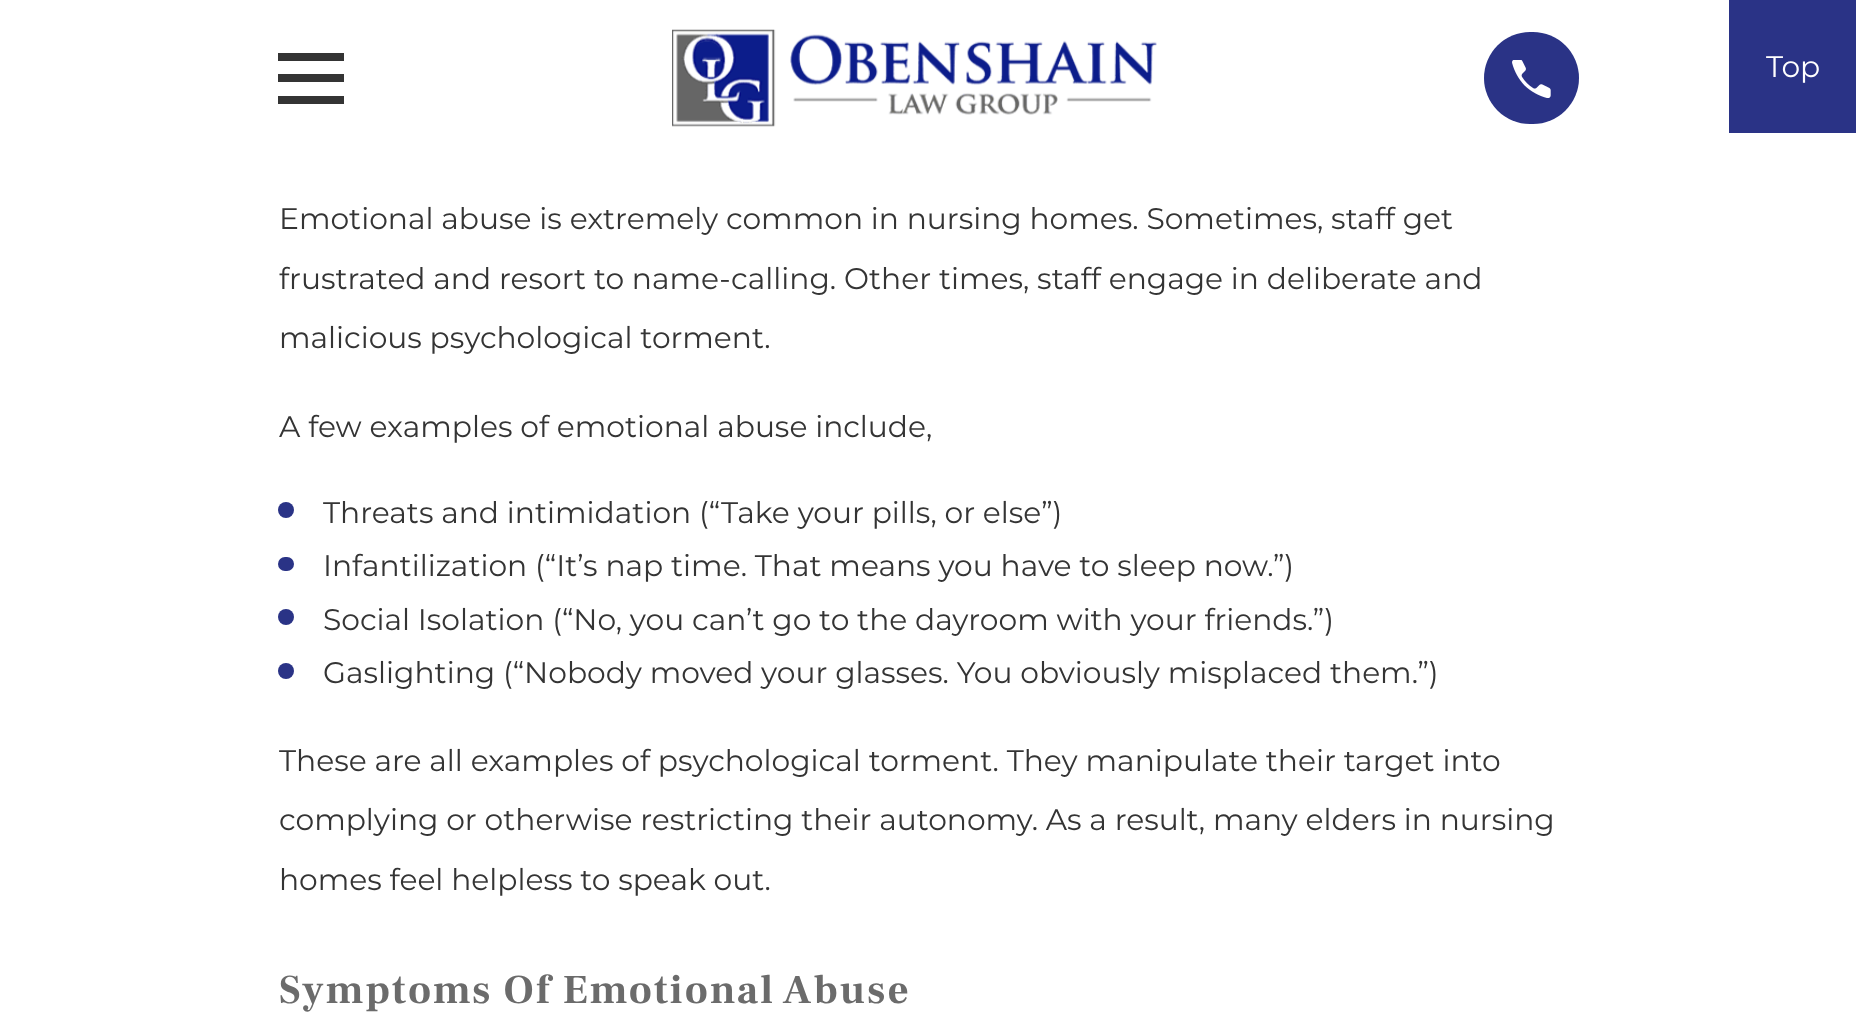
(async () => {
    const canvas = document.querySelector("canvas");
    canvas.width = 1856;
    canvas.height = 1015;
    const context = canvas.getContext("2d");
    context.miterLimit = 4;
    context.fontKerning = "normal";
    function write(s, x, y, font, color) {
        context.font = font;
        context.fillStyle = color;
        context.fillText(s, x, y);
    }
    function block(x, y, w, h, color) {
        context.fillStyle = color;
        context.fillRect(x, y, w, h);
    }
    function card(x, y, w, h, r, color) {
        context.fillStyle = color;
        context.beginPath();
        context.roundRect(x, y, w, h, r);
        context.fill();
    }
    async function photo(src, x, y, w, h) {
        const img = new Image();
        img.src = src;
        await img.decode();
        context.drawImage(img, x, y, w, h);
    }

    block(0, 0, 1856, 1015, "rgb(255, 255, 255)");
    context.fillStyle = "rgb(52, 52, 52)";
    context.beginPath();
    context.moveTo(278, 53);
    context.lineTo(278, 61);
    context.lineTo(344, 61);
    context.lineTo(344, 53);
    context.closePath();
    context.moveTo(278, 74);
    context.lineTo(278, 82);
    context.lineTo(344, 82);
    context.lineTo(344, 74);
    context.closePath();
    context.moveTo(278, 96);
    context.lineTo(278, 104);
    context.lineTo(344, 104);
    context.lineTo(344, 96);
    context.closePath();
    context.fill();
    await photo("media/1.png", 672, 29, 485, 98);
    card(1484, 32, 95, 92, 46, "rgb(42, 51, 134)");
    await photo("media/2.png", 1512, 60, 39, 38);
    block(1729, 0, 127, 133, "rgb(42, 51, 134)");
    write("Top", 1766, 77, "29.75px Montserrat", "rgb(255, 255, 255)");
    write("Emotional abuse is extremely common in nursing homes. Sometimes, staff get", 279, 229, "29.75px Montserrat", "rgb(52, 52, 52)");
    write("frustrated and resort to name-calling. Other times, staff engage in deliberate and", 279, 289, "29.75px Montserrat", "rgb(52, 52, 52)");
    write("malicious psychological torment.", 279, 348, "29.75px Montserrat", "rgb(52, 52, 52)");
    write("A few examples of emotional abuse include,", 279, 437, "29.75px Montserrat", "rgb(52, 52, 52)");
    context.fillStyle = "rgb(42, 51, 134)";
    context.beginPath();
    context.arc(286, 510, 8, 0, Math.PI * 2);
    context.fill();
    write("Threats and intimidation (“Take your pills, or else”)", 323, 523, "29.75px Montserrat", "rgb(52, 52, 52)");
    card(278, 557, 16, 14, 7, "rgb(42, 51, 134)");
    write("Infantilization (“It’s nap time. That means you have to sleep now.”)", 323, 576, "29.75px Montserrat", "rgb(52, 52, 52)");
    context.fillStyle = "rgb(42, 51, 134)";
    context.beginPath();
    context.arc(286, 617, 8, 0, Math.PI * 2);
    context.fill();
    write("Social Isolation (“No, you can’t go to the dayroom with your friends.”)", 323, 630, "29.75px Montserrat", "rgb(52, 52, 52)");
    context.fillStyle = "rgb(42, 51, 134)";
    context.beginPath();
    context.arc(286, 671, 8, 0, Math.PI * 2);
    context.fill();
    write("Gaslighting (“Nobody moved your glasses. You obviously misplaced them.”)", 323, 683, "29.75px Montserrat", "rgb(52, 52, 52)");
    write("These are all examples of psychological torment. They manipulate their target into", 279, 771, "29.75px Montserrat", "rgb(52, 52, 52)");
    write("complying or otherwise restricting their autonomy. As a result, many elders in nursing", 279, 830, "29.75px Montserrat", "rgb(52, 52, 52)");
    write("homes feel helpless to speak out.", 279, 890, "29.75px Montserrat", "rgb(52, 52, 52)");
    context.letterSpacing = "2.05px";
    write("Symptoms Of Emotional Abuse", 279, 1003, "bold 40.9px Frank Ruhl Libre", "rgb(107, 107, 107)");
})();
